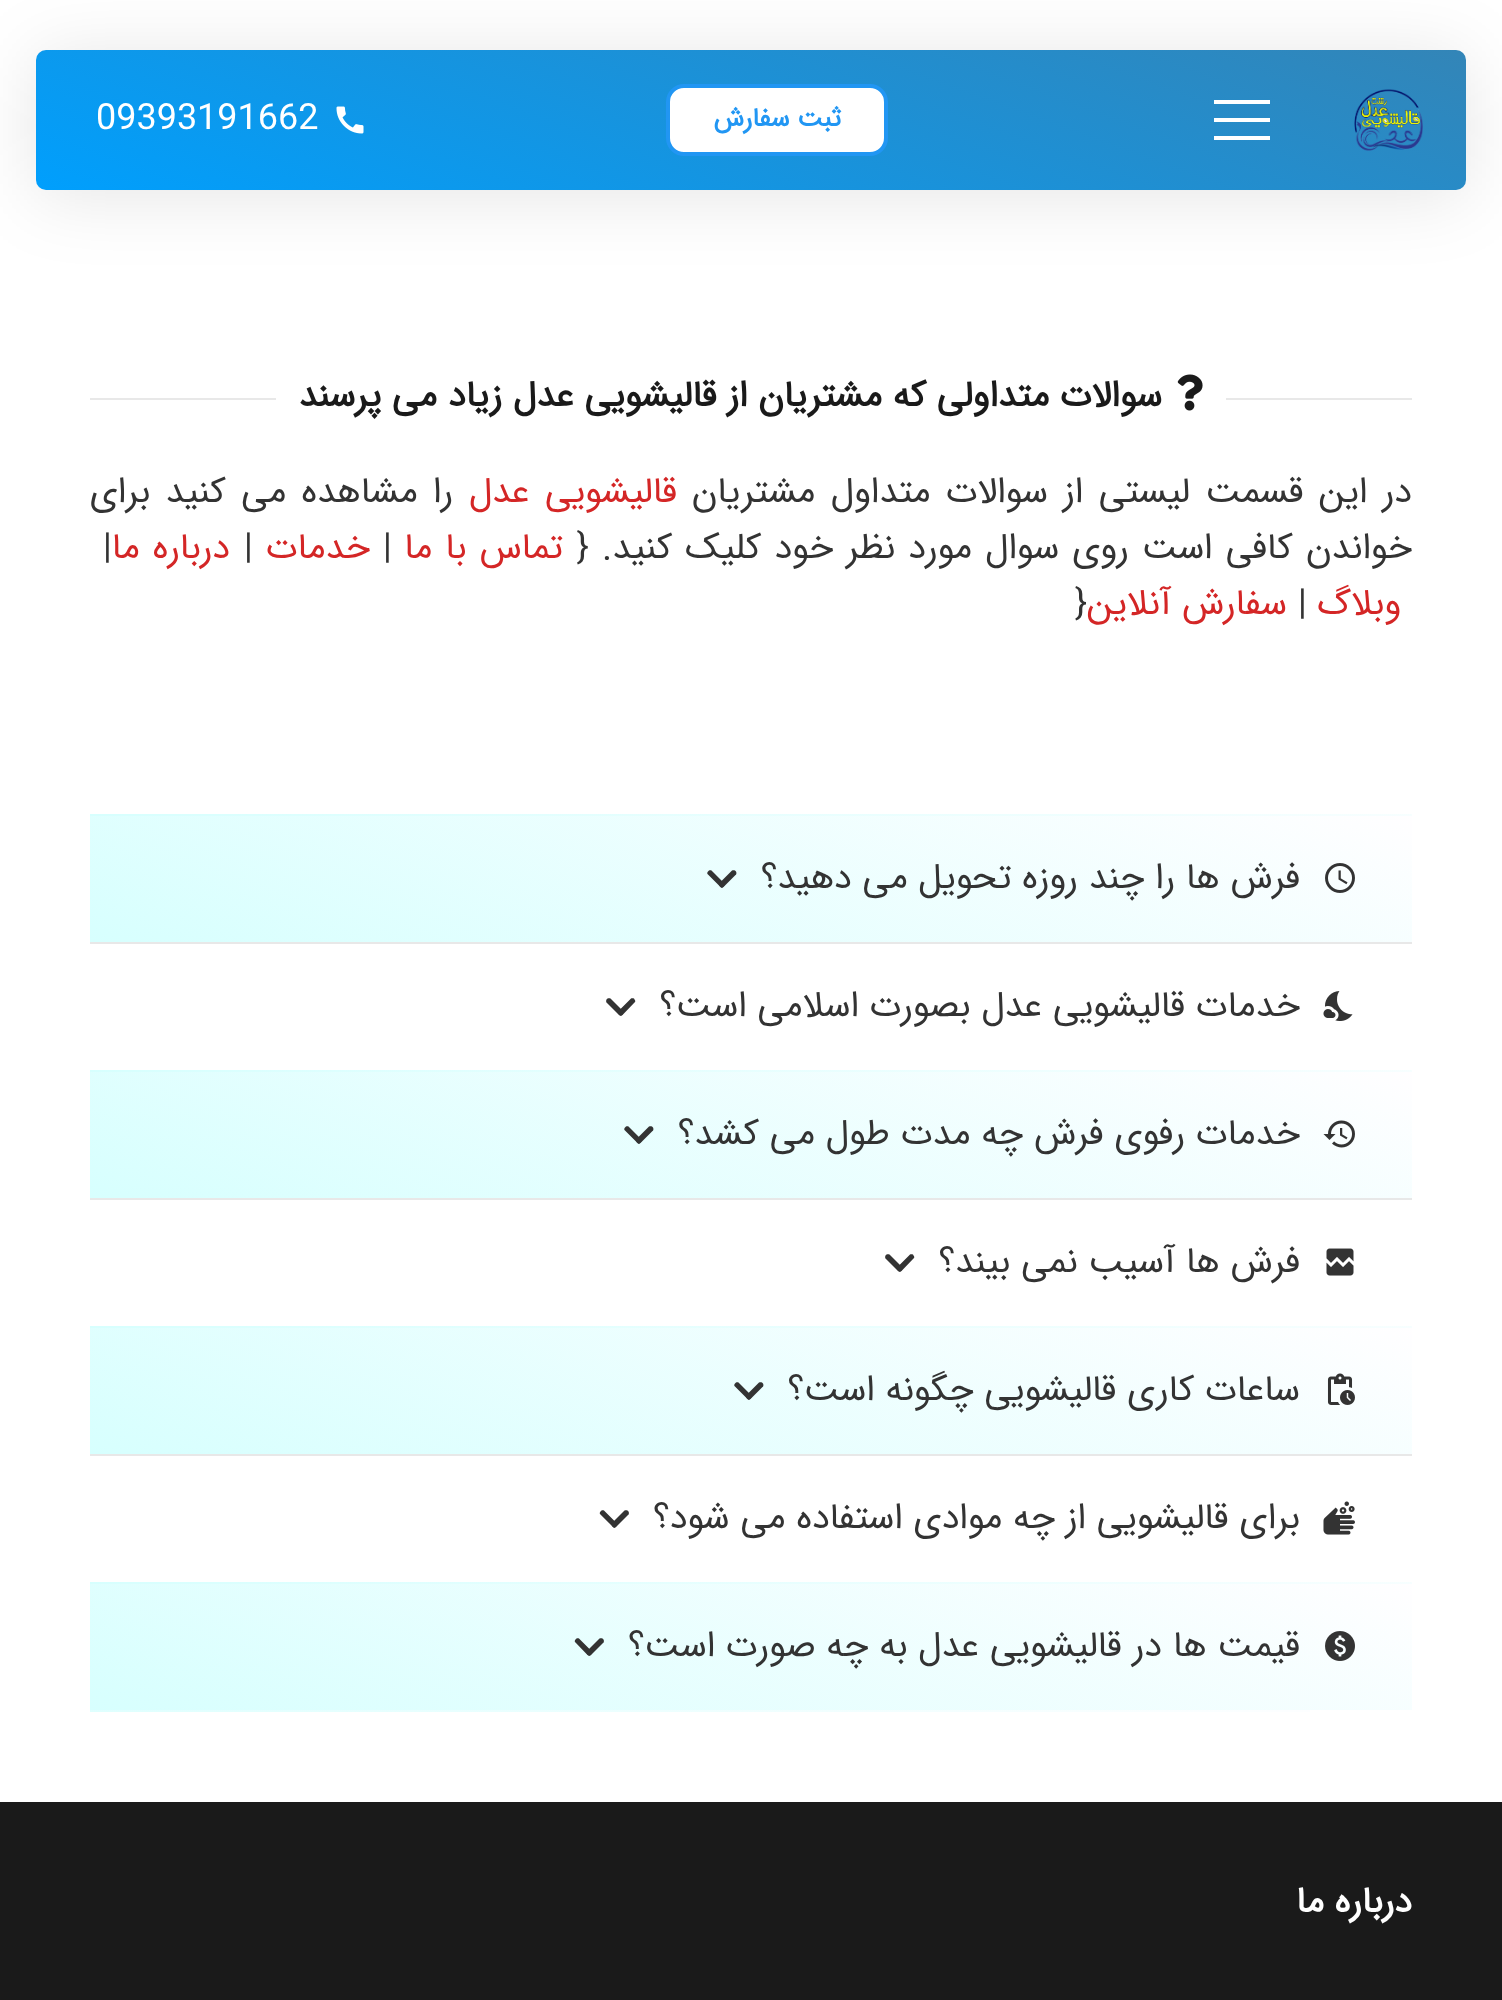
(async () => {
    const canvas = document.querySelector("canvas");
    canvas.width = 1502;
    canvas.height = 2000;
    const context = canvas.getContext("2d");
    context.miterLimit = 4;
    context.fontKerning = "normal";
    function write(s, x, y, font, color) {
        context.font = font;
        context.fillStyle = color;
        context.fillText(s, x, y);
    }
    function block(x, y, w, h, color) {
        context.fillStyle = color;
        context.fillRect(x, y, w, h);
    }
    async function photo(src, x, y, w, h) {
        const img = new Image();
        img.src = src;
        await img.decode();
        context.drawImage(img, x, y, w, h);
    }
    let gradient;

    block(0, 0, 1502, 2000, "rgb(255, 255, 255)");
    context.fillStyle = "rgba(0, 0, 0, 0.1)";
    context.filter = "blur(36px)";
    context.beginPath();
    context.roundRect(36, 56, 1430, 140, 10);
    context.fill();
    context.filter = "none";
    gradient = context.createLinearGradient(645, 412, 857, -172);
    gradient.addColorStop(0, "rgb(0, 159, 253)");
    gradient.addColorStop(1, "rgb(51, 133, 183)");
    context.fillStyle = gradient;
    context.beginPath();
    context.roundRect(36, 50, 1430, 140, 10);
    context.fill();
    await photo("media/1.png", 1354, 89, 69, 62);
    block(1214, 118, 56, 4, "rgb(255, 255, 255)");
    block(1214, 100, 56, 4, "rgb(255, 255, 255)");
    block(1214, 136, 56, 4, "rgb(255, 255, 255)");
    context.beginPath();
    context.roundRect(668, 86, 218, 68, 16);
    context.fill();
    context.strokeStyle = "rgb(33, 150, 243)";
    context.lineWidth = 4;
    context.stroke();
    context.direction = "rtl";
    write("ثبت سفارش", 841, 126, "bold 26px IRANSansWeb", "rgb(33, 150, 243)");
    await photo("media/2.png", 336, 106, 28, 28);
    context.direction = "ltr";
    write("09393191662", 96, 129, "36px IRANSansWeb", "rgb(255, 255, 255)");
    block(1226, 398, 186, 2, "rgb(232, 232, 232)");
    await photo("media/3.png", 1177, 374, 26, 37);
    context.direction = "rtl";
    write("سوالات متداولی که مشتریان از قالیشویی عدل زیاد می پرسند", 1162, 406, "bold 36px IRANSansWeb", "rgb(26, 26, 26)");
    block(90, 398, 186, 2, "rgb(232, 232, 232)");
    context.wordSpacing = "4.5px";
    write("در این قسمت لیستی از سوالات متداول مشتریان", 1412, 502, "36px IRANSansWeb", "rgb(51, 51, 51)");
    write("قالیشویی عدل", 677, 502, "36px IRANSansWeb", "rgb(212, 38, 38)");
    write("را مشاهده می کنید برای", 453, 502, "36px IRANSansWeb", "rgb(51, 51, 51)");
    context.wordSpacing = "2.25px";
    write("خواندن کافی است روی سوال مورد نظر خود کلیک کنید. {", 1412, 558, "36px IRANSansWeb", "rgb(51, 51, 51)");
    write("تماس با ما", 563, 558, "36px IRANSansWeb", "rgb(212, 38, 38)");
    context.wordSpacing = "0px";
    context.direction = "ltr";
    write("|", 383, 558, "36px IRANSansWeb", "rgb(51, 51, 51)");
    context.direction = "rtl";
    write("خدمات", 370, 558, "36px IRANSansWeb", "rgb(212, 38, 38)");
    context.direction = "ltr";
    write("|", 244, 558, "36px IRANSansWeb", "rgb(51, 51, 51)");
    context.wordSpacing = "2.25px";
    context.direction = "rtl";
    write("درباره ما", 230, 558, "36px IRANSansWeb", "rgb(212, 38, 38)");
    context.wordSpacing = "0px";
    context.direction = "ltr";
    write("|", 103, 558, "36px IRANSansWeb", "rgb(51, 51, 51)");
    context.direction = "rtl";
    write("وبلاگ", 1401, 614, "36px IRANSansWeb", "rgb(212, 38, 38)");
    context.direction = "ltr";
    write("|", 1298, 614, "36px IRANSansWeb", "rgb(51, 51, 51)");
    context.direction = "rtl";
    write("سفارش آنلاین", 1287, 614, "36px IRANSansWeb", "rgb(212, 38, 38)");
    context.direction = "ltr";
    write("}", 1075, 614, "36px IRANSansWeb", "rgb(51, 51, 51)");
    gradient = context.createLinearGradient(653, 1021, 849, 485);
    gradient.addColorStop(0, "rgb(215, 255, 254)");
    gradient.addColorStop(1, "rgb(255, 254, 255)");
    context.fillStyle = gradient;
    context.fillRect(90, 814, 1322, 2);
    gradient = context.createLinearGradient(653, 1147, 849, 611);
    gradient.addColorStop(0, "rgb(215, 255, 254)");
    gradient.addColorStop(1, "rgb(255, 254, 255)");
    context.fillStyle = gradient;
    context.fillRect(90, 816, 1322, 126);
    await photo("media/4.png", 1325, 863, 30, 30);
    context.direction = "rtl";
    write("فرش ها را چند روزه تحویل می دهید؟", 1300, 888, "36px IRANSansWeb", "rgb(51, 51, 51)");
    context.beginPath();
    context.moveTo(708, 871.5);
    context.lineTo(709, 870.5);
    context.bezierCurveTo(709.5, 870, 711, 870, 711.5, 870.5);
    context.lineTo(724, 883);
    context.bezierCurveTo(725, 884, 725, 885, 724, 886);
    context.lineTo(723, 887);
    context.bezierCurveTo(722.5, 888, 721, 888, 720.5, 887);
    context.lineTo(708, 874.5);
    context.bezierCurveTo(707, 874, 707, 872.5, 708, 871.5);
    context.closePath();
    context.fill();
    context.beginPath();
    context.moveTo(735, 870.5);
    context.lineTo(736, 871.5);
    context.bezierCurveTo(736.5, 872.5, 736.5, 874, 736, 874.5);
    context.lineTo(723.5, 887);
    context.bezierCurveTo(722.5, 888, 721.5, 888, 720.5, 887);
    context.lineTo(719.5, 886);
    context.bezierCurveTo(719, 885, 719, 884, 719.5, 883);
    context.lineTo(732, 870.5);
    context.bezierCurveTo(733, 870, 734, 870, 735, 870.5);
    context.closePath();
    context.fill();
    block(90, 942, 1322, 2, "rgb(232, 232, 232)");
    await photo("media/5.png", 1323, 991, 30, 30);
    write("خدمات قالیشویی عدل بصورت اسلامی است؟", 1300, 1016, "36px IRANSansWeb", "rgb(51, 51, 51)");
    context.beginPath();
    context.moveTo(606.5, 999.5);
    context.lineTo(607.5, 998.5);
    context.bezierCurveTo(608.5, 998, 609.5, 998, 610.5, 998.5);
    context.lineTo(623, 1011);
    context.bezierCurveTo(623.5, 1012, 623.5, 1013, 623, 1014);
    context.lineTo(622, 1015);
    context.bezierCurveTo(621, 1016, 620, 1016, 619, 1015);
    context.lineTo(606.5, 1002.5);
    context.bezierCurveTo(606, 1002, 606, 1000.5, 606.5, 999.5);
    context.closePath();
    context.fill();
    context.beginPath();
    context.moveTo(634, 998.5);
    context.lineTo(634.5, 999.5);
    context.bezierCurveTo(635.5, 1000.5, 635.5, 1002, 634.5, 1002.5);
    context.lineTo(622.5, 1015);
    context.bezierCurveTo(621.5, 1016, 620.5, 1016, 619.5, 1015);
    context.lineTo(618.5, 1014);
    context.bezierCurveTo(617.5, 1013, 617.5, 1012, 618.5, 1011);
    context.lineTo(631, 998.5);
    context.bezierCurveTo(631.5, 998, 633, 998, 634, 998.5);
    context.closePath();
    context.fill();
    gradient = context.createLinearGradient(653, 1277, 849, 741);
    gradient.addColorStop(0, "rgb(215, 255, 254)");
    gradient.addColorStop(1, "rgb(255, 254, 255)");
    context.fillStyle = gradient;
    context.fillRect(90, 1070, 1322, 2);
    gradient = context.createLinearGradient(653, 1403, 849, 867);
    gradient.addColorStop(0, "rgb(215, 255, 254)");
    gradient.addColorStop(1, "rgb(255, 254, 255)");
    context.fillStyle = gradient;
    context.fillRect(90, 1072, 1322, 126);
    await photo("media/6.png", 1323, 1120, 32, 28);
    write("خدمات رفوی فرش چه مدت طول می کشد؟", 1300, 1144, "36px IRANSansWeb", "rgb(51, 51, 51)");
    context.beginPath();
    context.moveTo(625, 1127.5);
    context.lineTo(626, 1126.5);
    context.bezierCurveTo(626.5, 1126, 628, 1126, 628.5, 1126.5);
    context.lineTo(641, 1139);
    context.bezierCurveTo(642, 1140, 642, 1141, 641, 1142);
    context.lineTo(640, 1143);
    context.bezierCurveTo(639.5, 1144, 638, 1144, 637.5, 1143);
    context.lineTo(625, 1130.5);
    context.bezierCurveTo(624, 1130, 624, 1128.5, 625, 1127.5);
    context.closePath();
    context.fill();
    context.beginPath();
    context.moveTo(652, 1126.5);
    context.lineTo(653, 1127.5);
    context.bezierCurveTo(653.5, 1128.5, 653.5, 1130, 653, 1130.5);
    context.lineTo(640.5, 1143);
    context.bezierCurveTo(639.5, 1144, 638.5, 1144, 637.5, 1143);
    context.lineTo(636.5, 1142);
    context.bezierCurveTo(636, 1141, 636, 1140, 636.5, 1139);
    context.lineTo(649, 1126.5);
    context.bezierCurveTo(650, 1126, 651, 1126, 652, 1126.5);
    context.closePath();
    context.fill();
    block(90, 1198, 1322, 2, "rgb(232, 232, 232)");
    await photo("media/7.png", 1326, 1248, 28, 28);
    write("فرش ها آسیب نمی بیند؟", 1300, 1272, "36px IRANSansWeb", "rgb(51, 51, 51)");
    context.beginPath();
    context.moveTo(885.5, 1255.5);
    context.lineTo(886.5, 1254.5);
    context.bezierCurveTo(887.5, 1254, 888.5, 1254, 889.5, 1254.5);
    context.lineTo(902, 1267);
    context.bezierCurveTo(902.5, 1268, 902.5, 1269, 902, 1270);
    context.lineTo(901, 1271);
    context.bezierCurveTo(900, 1272, 899, 1272, 898, 1271);
    context.lineTo(885.5, 1258.5);
    context.bezierCurveTo(885, 1258, 885, 1256.5, 885.5, 1255.5);
    context.closePath();
    context.fill();
    context.beginPath();
    context.moveTo(913, 1254.5);
    context.lineTo(913.5, 1255.5);
    context.bezierCurveTo(914.5, 1256.5, 914.5, 1258, 913.5, 1258.5);
    context.lineTo(901.5, 1271);
    context.bezierCurveTo(900.5, 1272, 899.5, 1272, 898.5, 1271);
    context.lineTo(897.5, 1270);
    context.bezierCurveTo(896.5, 1269, 896.5, 1268, 897.5, 1267);
    context.lineTo(910, 1254.5);
    context.bezierCurveTo(910.5, 1254, 912, 1254, 913, 1254.5);
    context.closePath();
    context.fill();
    gradient = context.createLinearGradient(653, 1533, 849, 997);
    gradient.addColorStop(0, "rgb(215, 255, 254)");
    gradient.addColorStop(1, "rgb(255, 254, 255)");
    context.fillStyle = gradient;
    context.fillRect(90, 1326, 1322, 2);
    gradient = context.createLinearGradient(653, 1659, 849, 1123);
    gradient.addColorStop(0, "rgb(215, 255, 254)");
    gradient.addColorStop(1, "rgb(255, 254, 255)");
    context.fillStyle = gradient;
    context.fillRect(90, 1328, 1322, 126);
    await photo("media/8.png", 1327, 1373, 28, 32);
    write("ساعات کاری قالیشویی چگونه است؟", 1300, 1400, "36px IRANSansWeb", "rgb(51, 51, 51)");
    context.beginPath();
    context.moveTo(735, 1383.5);
    context.lineTo(736, 1382.5);
    context.bezierCurveTo(736.5, 1382, 738, 1382, 738.5, 1382.5);
    context.lineTo(751, 1395);
    context.bezierCurveTo(752, 1396, 752, 1397, 751, 1398);
    context.lineTo(750, 1399);
    context.bezierCurveTo(749.5, 1400, 748, 1400, 747.5, 1399);
    context.lineTo(735, 1386.5);
    context.bezierCurveTo(734, 1386, 734, 1384.5, 735, 1383.5);
    context.closePath();
    context.fill();
    context.beginPath();
    context.moveTo(762, 1382.5);
    context.lineTo(763, 1383.5);
    context.bezierCurveTo(763.5, 1384.5, 763.5, 1386, 763, 1386.5);
    context.lineTo(750.5, 1399);
    context.bezierCurveTo(749.5, 1400, 748.5, 1400, 747.5, 1399);
    context.lineTo(746.5, 1398);
    context.bezierCurveTo(746, 1397, 746, 1396, 746.5, 1395);
    context.lineTo(759, 1382.5);
    context.bezierCurveTo(760, 1382, 761, 1382, 762, 1382.5);
    context.closePath();
    context.fill();
    block(90, 1454, 1322, 2, "rgb(232, 232, 232)");
    await photo("media/9.png", 1323, 1501, 32, 34);
    write("برای قالیشویی از چه موادی استفاده می شود؟", 1300, 1528, "36px IRANSansWeb", "rgb(51, 51, 51)");
    context.beginPath();
    context.moveTo(600.5, 1511.5);
    context.lineTo(601.5, 1510.5);
    context.bezierCurveTo(602, 1510, 603.5, 1510, 604, 1510.5);
    context.lineTo(616.5, 1523);
    context.bezierCurveTo(617.5, 1524, 617.5, 1525, 616.5, 1526);
    context.lineTo(615.5, 1527);
    context.bezierCurveTo(615, 1528, 613.5, 1528, 613, 1527);
    context.lineTo(600.5, 1514.5);
    context.bezierCurveTo(599.5, 1514, 599.5, 1512.5, 600.5, 1511.5);
    context.closePath();
    context.fill();
    context.beginPath();
    context.moveTo(627.5, 1510.5);
    context.lineTo(628.5, 1511.5);
    context.bezierCurveTo(629, 1512.5, 629, 1514, 628.5, 1514.5);
    context.lineTo(616, 1527);
    context.bezierCurveTo(615, 1528, 614, 1528, 613, 1527);
    context.lineTo(612, 1526);
    context.bezierCurveTo(611.5, 1525, 611.5, 1524, 612, 1523);
    context.lineTo(624.5, 1510.5);
    context.bezierCurveTo(625.5, 1510, 626.5, 1510, 627.5, 1510.5);
    context.closePath();
    context.fill();
    gradient = context.createLinearGradient(653, 1789, 849, 1253);
    gradient.addColorStop(0, "rgb(215, 255, 254)");
    gradient.addColorStop(1, "rgb(255, 254, 255)");
    context.fillStyle = gradient;
    context.fillRect(90, 1582, 1322, 2);
    gradient = context.createLinearGradient(653, 1915, 849, 1379);
    gradient.addColorStop(0, "rgb(215, 255, 254)");
    gradient.addColorStop(1, "rgb(255, 254, 255)");
    context.fillStyle = gradient;
    context.fillRect(90, 1584, 1322, 126);
    gradient = context.createLinearGradient(653, 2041, 849, 1505);
    gradient.addColorStop(0, "rgb(215, 255, 254)");
    gradient.addColorStop(1, "rgb(255, 254, 255)");
    context.fillStyle = gradient;
    context.fillRect(90, 1710, 1220, 2);
    await photo("media/10.png", 1325, 1631, 30, 30);
    write("قیمت ها در قالیشویی عدل به چه صورت است؟", 1300, 1656, "36px IRANSansWeb", "rgb(51, 51, 51)");
    context.beginPath();
    context.moveTo(575.5, 1639.5);
    context.lineTo(576.5, 1638.5);
    context.bezierCurveTo(577, 1638, 578.5, 1638, 579, 1638.5);
    context.lineTo(591.5, 1651);
    context.bezierCurveTo(592.5, 1652, 592.5, 1653, 591.5, 1654);
    context.lineTo(590.5, 1655);
    context.bezierCurveTo(590, 1656, 588.5, 1656, 587.5, 1655);
    context.lineTo(575.5, 1642.5);
    context.bezierCurveTo(574.5, 1642, 574.5, 1640.5, 575.5, 1639.5);
    context.closePath();
    context.fill();
    context.beginPath();
    context.moveTo(602.5, 1638.5);
    context.lineTo(603.5, 1639.5);
    context.bezierCurveTo(604, 1640.5, 604, 1642, 603.5, 1642.5);
    context.lineTo(591, 1655);
    context.bezierCurveTo(590, 1656, 589, 1656, 588, 1655);
    context.lineTo(587, 1654);
    context.bezierCurveTo(586.5, 1653, 586.5, 1652, 587, 1651);
    context.lineTo(599.5, 1638.5);
    context.bezierCurveTo(600.5, 1638, 601.5, 1638, 602.5, 1638.5);
    context.closePath();
    context.fill();
    block(0, 1802, 1502, 198, "rgb(26, 26, 26)");
    write("درباره ما", 1412, 1912, "bold 36px IRANSansWeb", "rgb(255, 255, 255)");
})();
